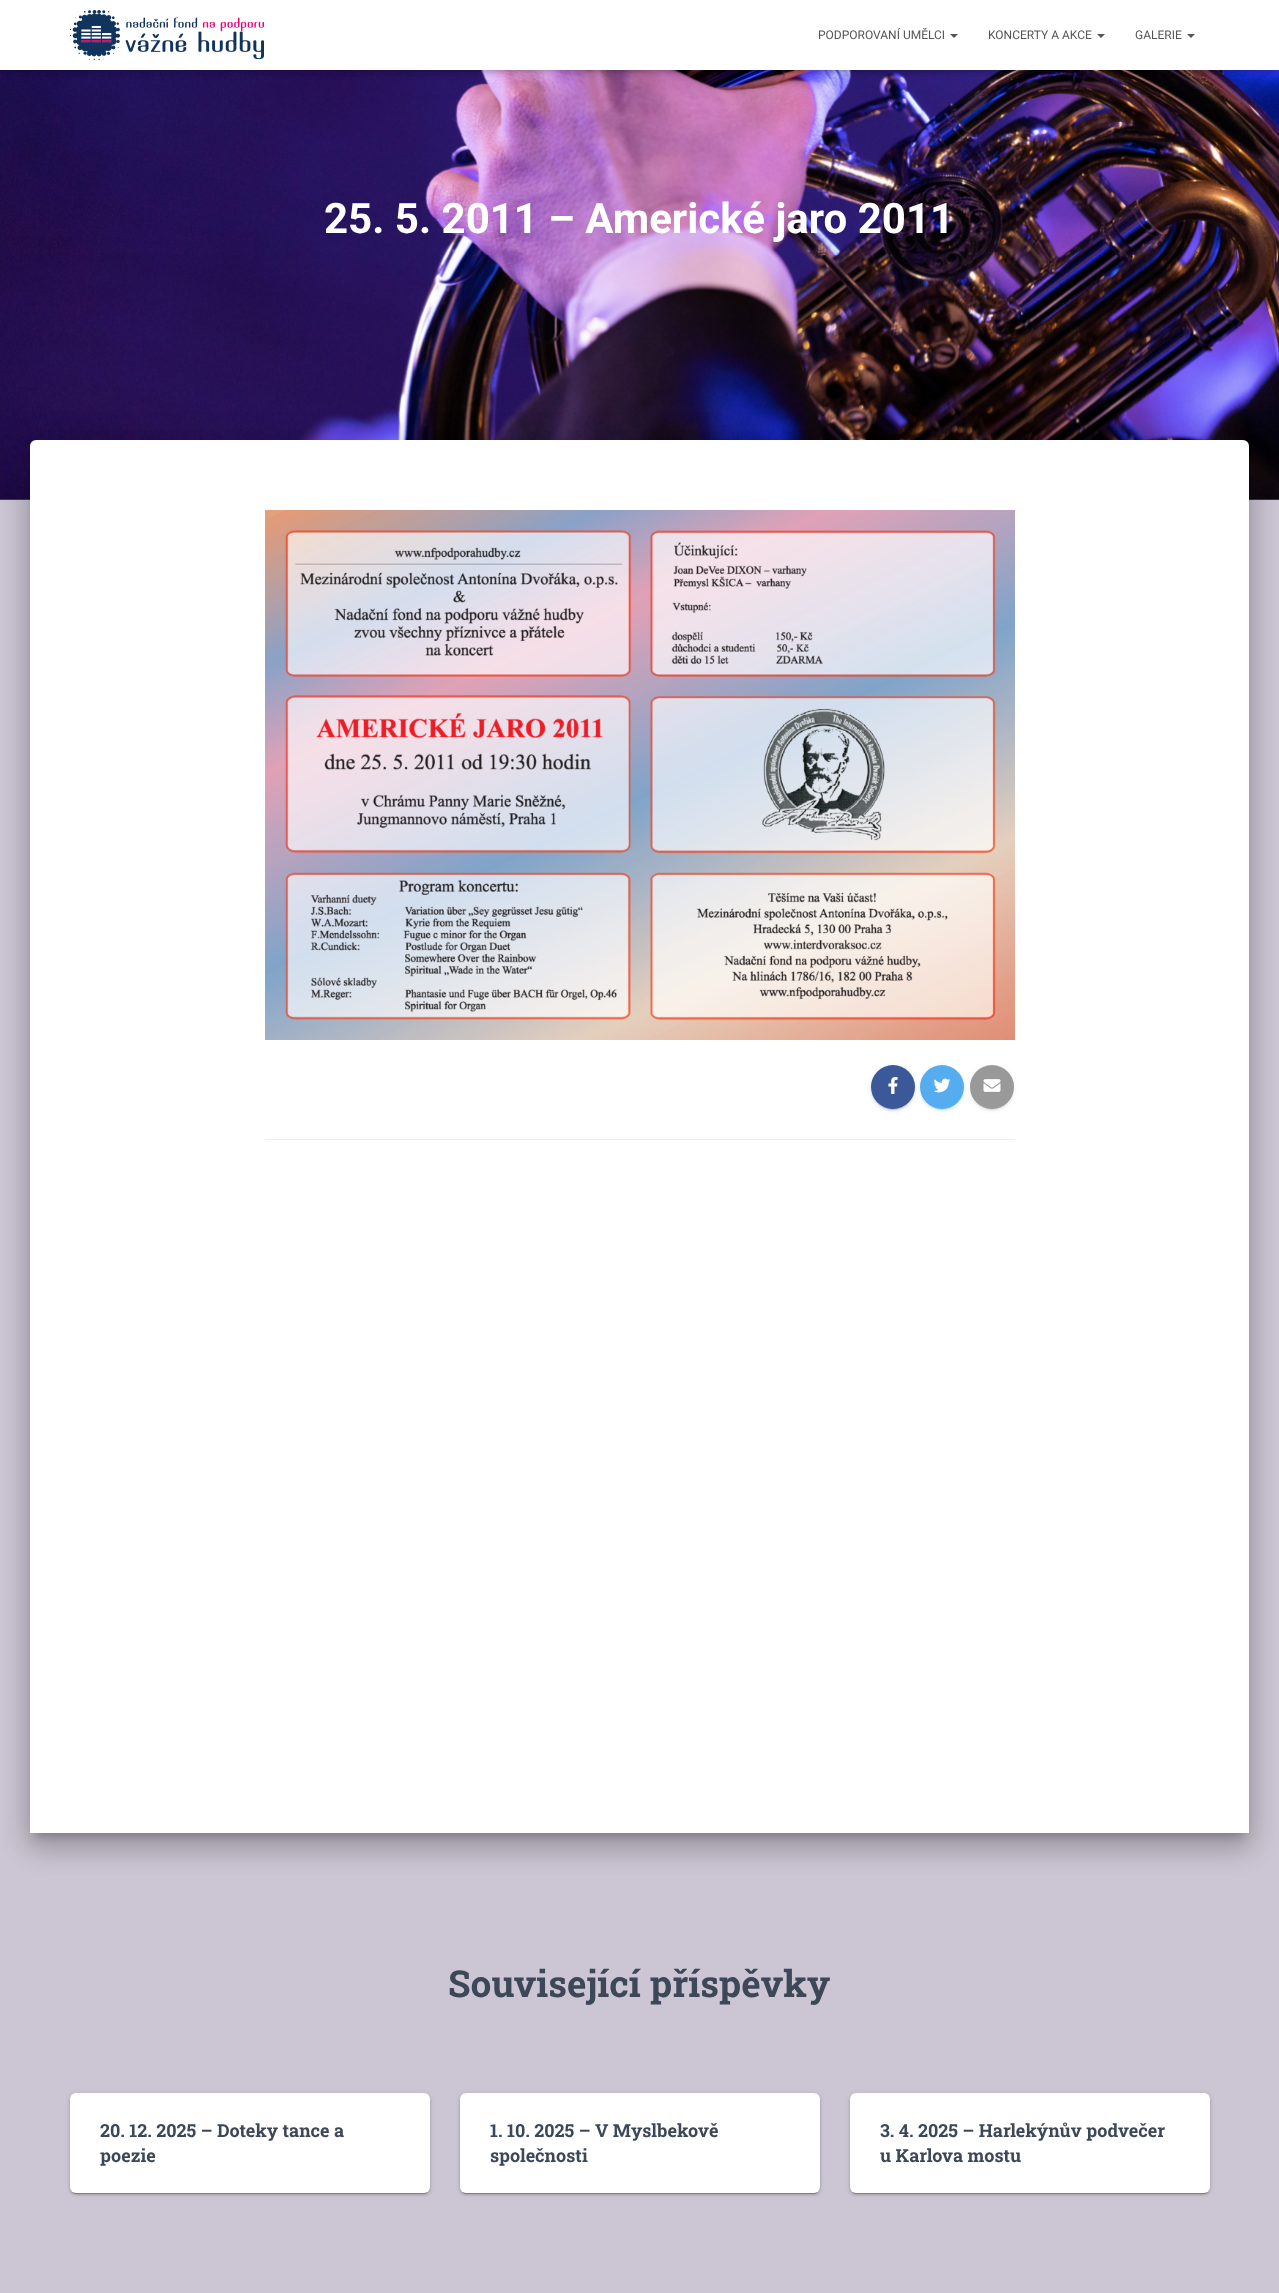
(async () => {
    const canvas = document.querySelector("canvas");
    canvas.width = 1279;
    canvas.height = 2293;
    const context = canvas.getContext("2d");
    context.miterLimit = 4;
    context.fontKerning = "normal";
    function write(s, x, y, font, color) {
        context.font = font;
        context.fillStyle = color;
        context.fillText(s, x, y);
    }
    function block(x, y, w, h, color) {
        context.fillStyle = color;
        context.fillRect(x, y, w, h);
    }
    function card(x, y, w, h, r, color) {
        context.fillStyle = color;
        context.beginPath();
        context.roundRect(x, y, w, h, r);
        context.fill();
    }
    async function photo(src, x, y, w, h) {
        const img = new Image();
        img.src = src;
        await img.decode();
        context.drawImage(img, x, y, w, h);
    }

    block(0, 0, 1279, 2293, "rgb(204, 197, 211)");
    await photo("media/2.png", 0, 70, 1279, 430);
    context.fillStyle = "rgba(0, 0, 0, 0.1)";
    context.filter = "blur(2.5px)";
    context.beginPath();
    context.rect(2, 6, 1275, 66);
    context.fill();
    context.filter = "none";
    context.fillStyle = "rgba(0, 0, 0, 0.12)";
    context.filter = "blur(5px)";
    context.beginPath();
    context.rect(0, 1, 1279, 70);
    context.fill();
    context.filter = "none";
    context.fillStyle = "rgba(0, 0, 0, 0.42)";
    context.filter = "blur(5px)";
    context.beginPath();
    context.rect(6, 7, 1267, 58);
    context.fill();
    context.filter = "none";
    block(0, 0, 1279, 70, "rgb(255, 255, 255)");
    await photo("media/1.png", 70, 10, 194, 50);
    write("PODPOROVANÍ UMĚLCI", 818, 39, "12px Roboto", "rgb(85, 85, 85)");
    context.beginPath();
    context.moveTo(950, 34);
    context.lineTo(958, 34);
    context.lineTo(954, 38);
    context.closePath();
    context.fill();
    write("KONCERTY A AKCE", 988, 39, "12px Roboto", "rgb(85, 85, 85)");
    context.beginPath();
    context.moveTo(1097, 34);
    context.lineTo(1105, 34);
    context.lineTo(1101, 38);
    context.closePath();
    context.fill();
    write("GALERIE", 1135, 39, "12px Roboto", "rgb(85, 85, 85)");
    context.beginPath();
    context.moveTo(1187, 34);
    context.lineTo(1195, 34);
    context.lineTo(1191, 38);
    context.closePath();
    context.fill();
    write("25. 5. 2011 – Americké jaro 2011", 324, 233, "bold 42px Roboto", "rgb(255, 255, 255)");
    context.fillStyle = "rgba(0, 0, 0, 0.2)";
    context.filter = "blur(5px)";
    context.beginPath();
    context.roundRect(35, 453, 1209, 1383, 1);
    context.fill();
    context.filter = "none";
    context.fillStyle = "rgba(0, 0, 0, 0.12)";
    context.filter = "blur(15px)";
    context.beginPath();
    context.roundRect(25, 441, 1229, 1403, 11);
    context.fill();
    context.filter = "none";
    context.fillStyle = "rgba(0, 0, 0, 0.14)";
    context.filter = "blur(12px)";
    context.beginPath();
    context.roundRect(28, 454, 1223, 1397, 8);
    context.fill();
    context.filter = "none";
    context.fillStyle = "rgb(255, 255, 255)";
    context.beginPath();
    context.roundRect(30, 440, 1219, 1393, [6, 6, 0, 0]);
    context.fill();
    await photo("media/3.png", 265, 510, 750, 530);
    context.fillStyle = "rgba(59, 89, 152, 0.12)";
    context.filter = "blur(2.5px)";
    context.beginPath();
    context.roundRect(871, 1066, 44, 44, 22);
    context.fill();
    context.filter = "none";
    context.fillStyle = "rgba(59, 89, 152, 0.2)";
    context.filter = "blur(0.5px)";
    context.beginPath();
    context.roundRect(873, 1070, 40, 40, 20);
    context.fill();
    context.filter = "none";
    context.fillStyle = "rgba(59, 89, 152, 0.14)";
    context.filter = "blur(1px)";
    context.beginPath();
    context.roundRect(871, 1067, 44, 44, 22);
    context.fill();
    context.filter = "none";
    context.fillStyle = "rgb(59, 89, 152)";
    context.beginPath();
    context.arc(893, 1087, 22, 0, Math.PI * 2);
    context.fill();
    await photo("media/4.png", 888, 1077, 10, 17);
    context.fillStyle = "rgba(85, 172, 238, 0.12)";
    context.filter = "blur(2.5px)";
    context.beginPath();
    context.roundRect(920, 1066, 44, 44, 22);
    context.fill();
    context.filter = "none";
    context.fillStyle = "rgba(85, 172, 238, 0.2)";
    context.filter = "blur(0.5px)";
    context.beginPath();
    context.roundRect(922, 1070, 40, 40, 20);
    context.fill();
    context.filter = "none";
    context.fillStyle = "rgba(85, 172, 238, 0.14)";
    context.filter = "blur(1px)";
    context.beginPath();
    context.roundRect(920, 1067, 44, 44, 22);
    context.fill();
    context.filter = "none";
    context.fillStyle = "rgb(85, 172, 238)";
    context.beginPath();
    context.arc(942, 1087, 22, 0, Math.PI * 2);
    context.fill();
    await photo("media/5.png", 933, 1078, 18, 15);
    context.fillStyle = "rgba(153, 153, 153, 0.12)";
    context.filter = "blur(2.5px)";
    context.beginPath();
    context.roundRect(970, 1066, 44, 44, 22);
    context.fill();
    context.filter = "none";
    context.fillStyle = "rgba(153, 153, 153, 0.2)";
    context.filter = "blur(0.5px)";
    context.beginPath();
    context.roundRect(972, 1070, 40, 40, 20);
    context.fill();
    context.filter = "none";
    context.fillStyle = "rgba(153, 153, 153, 0.14)";
    context.filter = "blur(1px)";
    context.beginPath();
    context.roundRect(970, 1067, 44, 44, 22);
    context.fill();
    context.filter = "none";
    context.fillStyle = "rgb(153, 153, 153)";
    context.beginPath();
    context.arc(992, 1087, 22, 0, Math.PI * 2);
    context.fill();
    await photo("media/6.png", 983, 1079, 18, 13);
    block(265, 1139, 750, 1, "rgb(238, 238, 238)");
    write("Související příspěvky", 448, 1997, "bold 37px Roboto Slab", "rgb(60, 72, 88)");
    context.fillStyle = "rgba(0, 0, 0, 0.12)";
    context.filter = "blur(2.5px)";
    context.beginPath();
    context.roundRect(70, 2094, 360, 100, 6);
    context.fill();
    context.filter = "none";
    context.fillStyle = "rgba(0, 0, 0, 0.2)";
    context.filter = "blur(0.5px)";
    context.beginPath();
    context.roundRect(72, 2098, 356, 96, 4);
    context.fill();
    context.filter = "none";
    context.fillStyle = "rgba(0, 0, 0, 0.14)";
    context.filter = "blur(1px)";
    context.beginPath();
    context.roundRect(70, 2095, 360, 100, 6);
    context.fill();
    context.filter = "none";
    card(70, 2093, 360, 100, 6, "rgb(255, 255, 255)");
    write("20. 12. 2025 – Doteky tance a", 100, 2137, "bold 18px Roboto Slab", "rgb(60, 72, 88)");
    write("poezie", 100, 2162, "bold 18px Roboto Slab", "rgb(60, 72, 88)");
    context.fillStyle = "rgba(0, 0, 0, 0.12)";
    context.filter = "blur(2.5px)";
    context.beginPath();
    context.roundRect(460, 2094, 360, 100, 6);
    context.fill();
    context.filter = "none";
    context.fillStyle = "rgba(0, 0, 0, 0.2)";
    context.filter = "blur(0.5px)";
    context.beginPath();
    context.roundRect(462, 2098, 356, 96, 4);
    context.fill();
    context.filter = "none";
    context.fillStyle = "rgba(0, 0, 0, 0.14)";
    context.filter = "blur(1px)";
    context.beginPath();
    context.roundRect(460, 2095, 360, 100, 6);
    context.fill();
    context.filter = "none";
    card(460, 2093, 360, 100, 6, "rgb(255, 255, 255)");
    write("1. 10. 2025 – V Myslbekově", 490, 2137, "bold 18px Roboto Slab", "rgb(60, 72, 88)");
    write("společnosti", 490, 2162, "bold 18px Roboto Slab", "rgb(60, 72, 88)");
    context.fillStyle = "rgba(0, 0, 0, 0.12)";
    context.filter = "blur(2.5px)";
    context.beginPath();
    context.roundRect(850, 2094, 360, 100, 6);
    context.fill();
    context.filter = "none";
    context.fillStyle = "rgba(0, 0, 0, 0.2)";
    context.filter = "blur(0.5px)";
    context.beginPath();
    context.roundRect(852, 2098, 356, 96, 4);
    context.fill();
    context.filter = "none";
    context.fillStyle = "rgba(0, 0, 0, 0.14)";
    context.filter = "blur(1px)";
    context.beginPath();
    context.roundRect(850, 2095, 360, 100, 6);
    context.fill();
    context.filter = "none";
    card(850, 2093, 360, 100, 6, "rgb(255, 255, 255)");
    write("3. 4. 2025 – Harlekýnův podvečer", 880, 2137, "bold 18px Roboto Slab", "rgb(60, 72, 88)");
    write("u Karlova mostu", 880, 2162, "bold 18px Roboto Slab", "rgb(60, 72, 88)");
})();
